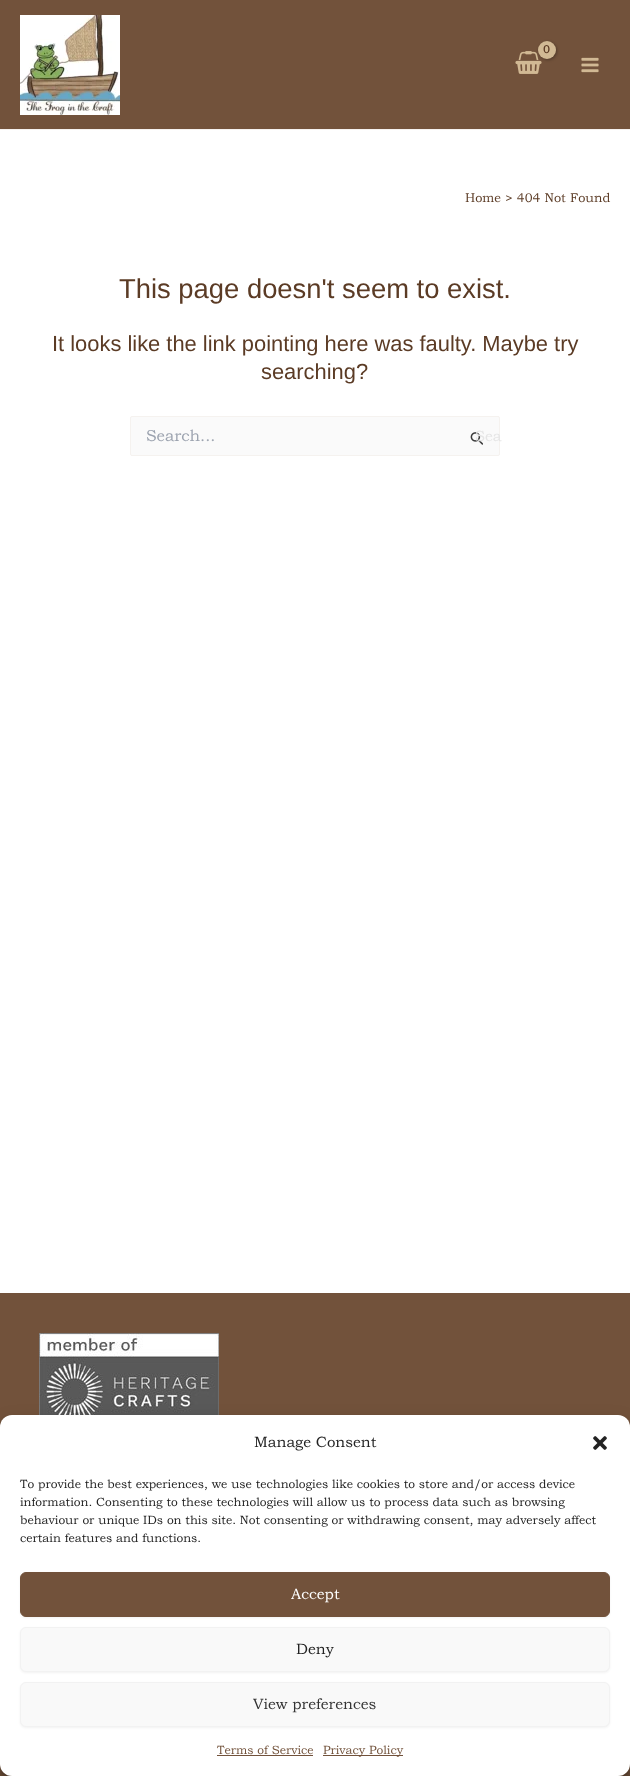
(async () => {
    const canvas = document.querySelector("canvas");
    canvas.width = 630;
    canvas.height = 1776;
    const context = canvas.getContext("2d");
    context.miterLimit = 4;
    context.fontKerning = "normal";
    function write(s, x, y, font, color) {
        context.font = font;
        context.fillStyle = color;
        context.fillText(s, x, y);
    }
    function block(x, y, w, h, color) {
        context.fillStyle = color;
        context.fillRect(x, y, w, h);
    }
    function card(x, y, w, h, r, color) {
        context.fillStyle = color;
        context.beginPath();
        context.roundRect(x, y, w, h, r);
        context.fill();
    }
    async function photo(src, x, y, w, h) {
        const img = new Image();
        img.src = src;
        await img.decode();
        context.drawImage(img, x, y, w, h);
    }

    block(0, 0, 630, 1776, "rgb(255, 255, 255)");
    block(0, 0, 630, 129, "rgb(114, 82, 59)");
    block(0, 129, 630, 1, "rgb(245, 242, 239)");
    await photo("media/1.png", 20, 15, 100, 100);
    await photo("media/2.png", 515, 51, 27, 23);
    context.fillStyle = "rgba(0, 0, 0, 0.3)";
    context.filter = "blur(1.5px)";
    context.beginPath();
    context.roundRect(539, 42, 18, 18, 9);
    context.fill();
    context.filter = "none";
    context.fillStyle = "rgb(209, 185, 148)";
    context.beginPath();
    context.arc(547, 50, 9, 0, Math.PI * 2);
    context.fill();
    write("0", 543, 53, "bold 11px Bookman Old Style", "rgb(91, 59, 37)");
    await photo("media/3.png", 581, 57, 18, 16);
    write("Home", 465, 202, "12.75px Bookman Old Style", "rgb(91, 59, 37)");
    write("> 404 Not Found", 505, 202, "12.75px Bookman Old Style", "rgb(91, 59, 37)");
    write("This page doesn't seem to exist.", 119, 298, "27.4px Liberation Sans", "rgb(91, 59, 37)");
    write("It looks like the link pointing here was faulty. Maybe try", 52, 351, "21.9px Liberation Sans", "rgb(91, 59, 37)");
    write("searching?", 261, 379, "21.9px Liberation Sans", "rgb(91, 59, 37)");
    context.fillStyle = "rgb(250, 250, 250)";
    context.beginPath();
    context.roundRect(130.5, 416.5, 369, 39, 1.5);
    context.fill();
    context.strokeStyle = "rgb(245, 242, 239)";
    context.stroke();
    write("Search...", 146, 441, "16px Bookman Old Style", "rgb(156, 163, 175)");
    await photo("media/4.png", 470, 432, 13, 13);
    write("Sea", 475, 441, "15px Bookman Old Style", "rgb(229, 229, 229)");
    block(0, 1293, 630, 134, "rgb(114, 82, 59)");
    await photo("media/5.png", 39, 1333, 180, 82);
    block(0, 1764, 630, 12, "rgb(114, 82, 59)");
    context.fillStyle = "rgba(0, 0, 0, 0.23)";
    context.filter = "blur(3px)";
    context.beginPath();
    context.roundRect(0, 1421, 630, 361, 12);
    context.fill();
    context.filter = "none";
    context.fillStyle = "rgba(0, 0, 0, 0.19)";
    context.filter = "blur(10px)";
    context.beginPath();
    context.roundRect(0, 1425, 630, 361, 12);
    context.fill();
    context.filter = "none";
    card(0, 1415, 630, 361, 12, "rgb(255, 255, 255)");
    write("Manage Consent", 254, 1447, "15px Bookman Old Style", "rgb(34, 34, 34)");
    await photo("media/6.png", 593, 1436, 14, 14);
    write("To provide the best experiences, we use technologies like cookies to store and/or access device", 20, 1488, "12px Bookman Old Style", "rgb(34, 34, 34)");
    write("information. Consenting to these technologies will allow us to process data such as browsing", 20, 1506, "12px Bookman Old Style", "rgb(34, 34, 34)");
    write("behaviour or unique IDs on this site. Not consenting or withdrawing consent, may adversely affect", 20, 1524, "12px Bookman Old Style", "rgb(34, 34, 34)");
    write("certain features and functions.", 20, 1542, "12px Bookman Old Style", "rgb(34, 34, 34)");
    context.fillStyle = "rgba(0, 0, 0, 0.05)";
    context.filter = "blur(1px)";
    context.beginPath();
    context.roundRect(20, 1573, 590, 45, 6);
    context.fill();
    context.filter = "none";
    context.fillStyle = "rgb(114, 82, 59)";
    context.beginPath();
    context.roundRect(20.5, 1572.5, 589, 44, 5.5);
    context.fill();
    context.strokeStyle = "rgb(114, 82, 59)";
    context.stroke();
    write("Accept", 291, 1599, "15px Bookman Old Style", "rgb(255, 255, 255)");
    context.fillStyle = "rgba(0, 0, 0, 0.05)";
    context.filter = "blur(1px)";
    context.beginPath();
    context.roundRect(20, 1628, 590, 45, 6);
    context.fill();
    context.filter = "none";
    context.fillStyle = "rgb(249, 249, 249)";
    context.beginPath();
    context.roundRect(20.5, 1627.5, 589, 44, 5.5);
    context.fill();
    context.strokeStyle = "rgb(242, 242, 242)";
    context.stroke();
    write("Deny", 296, 1654, "15px Bookman Old Style", "rgb(34, 34, 34)");
    context.fillStyle = "rgba(0, 0, 0, 0.05)";
    context.filter = "blur(1px)";
    context.beginPath();
    context.roundRect(20, 1683, 590, 45, 6);
    context.fill();
    context.filter = "none";
    context.fillStyle = "rgb(249, 249, 249)";
    context.beginPath();
    context.roundRect(20.5, 1682.5, 589, 44, 5.5);
    context.fill();
    context.stroke();
    write("View preferences", 253, 1709, "15px Bookman Old Style", "rgb(51, 51, 51)");
    write("Terms of Service", 217, 1754, "12px Bookman Old Style", "rgb(114, 82, 59)");
    block(217, 1755, 96, 1, "rgb(114, 82, 59)");
    block(323, 1755, 80, 1, "rgb(114, 82, 59)");
    write("Privacy Policy", 323, 1754, "12px Bookman Old Style", "rgb(114, 82, 59)");
})();
